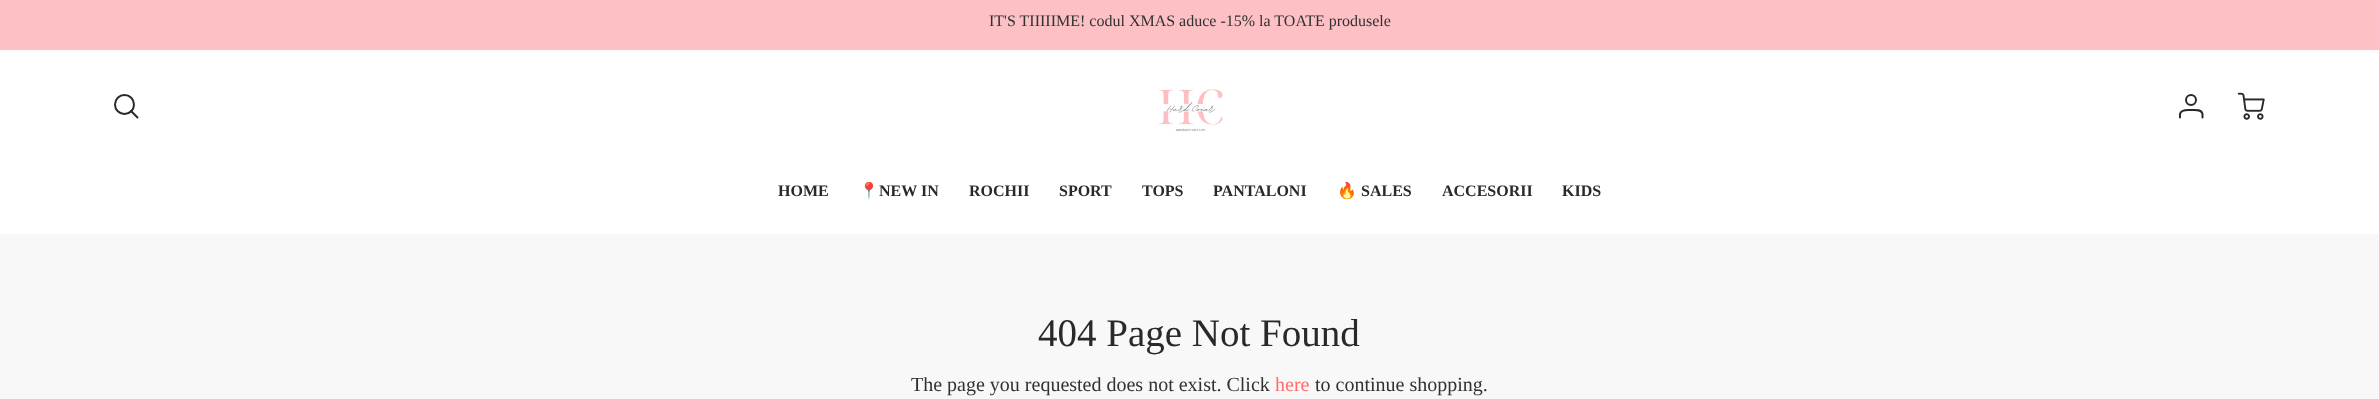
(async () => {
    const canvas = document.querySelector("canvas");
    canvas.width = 2379;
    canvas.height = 399;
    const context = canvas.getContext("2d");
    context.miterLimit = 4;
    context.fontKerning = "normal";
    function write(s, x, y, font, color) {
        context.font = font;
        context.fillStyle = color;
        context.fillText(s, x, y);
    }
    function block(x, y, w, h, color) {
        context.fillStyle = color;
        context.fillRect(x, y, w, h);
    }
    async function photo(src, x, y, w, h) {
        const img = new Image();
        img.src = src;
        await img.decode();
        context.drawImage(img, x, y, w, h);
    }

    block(0, 0, 2379, 399, "rgb(248, 248, 248)");
    block(0, 0, 2379, 50, "rgb(252, 192, 197)");
    write("IT'S TIIIIIME! codul XMAS aduce -15% la TOATE produsele", 989, 26, "16px Liberation Serif", "rgb(49, 49, 49)");
    block(0, 50, 2379, 184, "rgb(255, 255, 255)");
    context.beginPath();
    context.arc(124.5, 104.5, 9.5, 0, Math.PI * 2);
    context.strokeStyle = "rgb(41, 41, 41)";
    context.lineWidth = 2;
    context.stroke();
    context.beginPath();
    context.moveTo(137.5, 117.5);
    context.lineTo(131, 111);
    context.lineCap = "round";
    context.lineJoin = "round";
    context.stroke();
    await photo("media/1.png", 1159, 89, 64, 43);
    context.beginPath();
    context.arc(2191, 100, 5, 0, Math.PI * 2);
    context.stroke();
    context.beginPath();
    context.moveTo(2202.5, 117.5);
    context.lineTo(2202.5, 114);
    context.bezierCurveTo(2201.5, 109, 2195, 110, 2191, 110);
    context.bezierCurveTo(2187.5, 110, 2181, 109, 2180, 114);
    context.lineTo(2180, 117.5);
    context.stroke();
    await photo("media/2.png", 2237, 92, 28, 28);
    write("HOME", 778, 196, "bold 16px Liberation Serif", "rgb(41, 41, 41)");
    write("📍", 859, 196, "bold 16px Noto Color Emoji", "rgb(41, 41, 41)");
    write("NEW IN", 879, 196, "bold 16px Liberation Serif", "rgb(41, 41, 41)");
    write("ROCHII", 969, 196, "bold 16px Liberation Serif", "rgb(41, 41, 41)");
    write("SPORT", 1059, 196, "bold 16px Liberation Serif", "rgb(41, 41, 41)");
    write("TOPS", 1142, 196, "bold 16px Liberation Serif", "rgb(41, 41, 41)");
    write("PANTALONI", 1213, 196, "bold 16px Liberation Serif", "rgb(41, 41, 41)");
    write("🔥", 1337, 196, "bold 16px Noto Color Emoji", "rgb(41, 41, 41)");
    write("SALES", 1361, 196, "bold 16px Liberation Serif", "rgb(41, 41, 41)");
    write("ACCESORII", 1442, 196, "bold 16px Liberation Serif", "rgb(41, 41, 41)");
    write("KIDS", 1562, 196, "bold 16px Liberation Serif", "rgb(41, 41, 41)");
    write("404 Page Not Found", 1038, 346, "39px Liberation Serif", "rgb(41, 41, 41)");
    write("The page you requested does not exist. Click", 911, 391, "20px Liberation Serif", "rgb(49, 49, 49)");
    write("here", 1275, 391, "20px Liberation Serif", "rgb(255, 109, 109)");
    write("to continue shopping.", 1315, 391, "20px Liberation Serif", "rgb(49, 49, 49)");
})();
